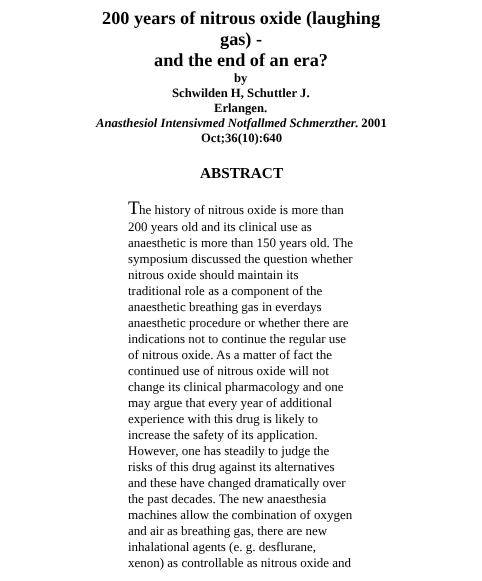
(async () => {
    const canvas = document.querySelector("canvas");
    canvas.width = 482;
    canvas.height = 581;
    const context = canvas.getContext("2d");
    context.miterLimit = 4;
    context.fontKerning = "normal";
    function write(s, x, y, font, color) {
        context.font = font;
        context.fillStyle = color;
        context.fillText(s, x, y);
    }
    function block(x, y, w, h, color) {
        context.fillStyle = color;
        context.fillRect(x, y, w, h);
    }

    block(0, 0, 482, 581, "rgb(255, 255, 255)");
    write("200 years of nitrous oxide (laughing", 102, 24, "bold 18.25px Liberation Serif", "rgb(0, 0, 0)");
    write("gas) -", 220, 45, "bold 18.25px Liberation Serif", "rgb(0, 0, 0)");
    write("and the end of an era?", 154, 66, "bold 18.25px Liberation Serif", "rgb(0, 0, 0)");
    write("by", 234, 82, "bold 12.7px Liberation Serif", "rgb(0, 0, 0)");
    write("Schwilden H, Schuttler J.", 172, 97, "bold 12.7px Liberation Serif", "rgb(0, 0, 0)");
    write("Erlangen.", 214, 112, "bold 12.7px Liberation Serif", "rgb(0, 0, 0)");
    write("Anasthesiol Intensivmed Notfallmed Schmerzther", 96, 127, "italic bold 12.7px Liberation Serif", "rgb(0, 0, 0)");
    write(". 2001", 355, 127, "bold 12.7px Liberation Serif", "rgb(0, 0, 0)");
    write("Oct;36(10):640", 201, 142, "bold 12.7px Liberation Serif", "rgb(0, 0, 0)");
    write("ABSTRACT", 200, 178, "bold 15.25px Liberation Serif", "rgb(0, 0, 0)");
    write("T", 128, 214, "19px Liberation Serif", "rgb(0, 0, 0)");
    write("he history of nitrous oxide is more than", 139, 214, "13px Liberation Serif", "rgb(0, 0, 0)");
    write("200 years old and its clinical use as", 128, 231, "13px Liberation Serif", "rgb(0, 0, 0)");
    write("anaesthetic is more than 150 years old. The", 128, 247, "13px Liberation Serif", "rgb(0, 0, 0)");
    write("symposium discussed the question whether", 128, 263, "13px Liberation Serif", "rgb(0, 0, 0)");
    write("nitrous oxide should maintain its", 128, 279, "13px Liberation Serif", "rgb(0, 0, 0)");
    write("traditional role as a component of the", 128, 295, "13px Liberation Serif", "rgb(0, 0, 0)");
    write("anaesthetic breathing gas in everdays", 128, 311, "13px Liberation Serif", "rgb(0, 0, 0)");
    write("anaesthetic procedure or whether there are", 128, 327, "13px Liberation Serif", "rgb(0, 0, 0)");
    write("indications not to continue the regular use", 128, 343, "13px Liberation Serif", "rgb(0, 0, 0)");
    write("of nitrous oxide. As a matter of fact the", 128, 359, "13px Liberation Serif", "rgb(0, 0, 0)");
    write("continued use of nitrous oxide will not", 128, 375, "13px Liberation Serif", "rgb(0, 0, 0)");
    write("change its clinical pharmacology and one", 128, 391, "13px Liberation Serif", "rgb(0, 0, 0)");
    write("may argue that every year of additional", 128, 407, "13px Liberation Serif", "rgb(0, 0, 0)");
    write("experience with this drug is likely to", 128, 423, "13px Liberation Serif", "rgb(0, 0, 0)");
    write("increase the safety of its application.", 128, 439, "13px Liberation Serif", "rgb(0, 0, 0)");
    write("However, one has steadily to judge the", 128, 455, "13px Liberation Serif", "rgb(0, 0, 0)");
    write("risks of this drug against its alternatives", 128, 471, "13px Liberation Serif", "rgb(0, 0, 0)");
    write("and these have changed dramatically over", 128, 487, "13px Liberation Serif", "rgb(0, 0, 0)");
    write("the past decades. The new anaesthesia", 128, 503, "13px Liberation Serif", "rgb(0, 0, 0)");
    write("machines allow the combination of oxygen", 128, 519, "13px Liberation Serif", "rgb(0, 0, 0)");
    write("and air as breathing gas, there are new", 128, 535, "13px Liberation Serif", "rgb(0, 0, 0)");
    write("inhalational agents (e. g. desflurane,", 128, 551, "13px Liberation Serif", "rgb(0, 0, 0)");
    write("xenon) as controllable as nitrous oxide and", 128, 567, "13px Liberation Serif", "rgb(0, 0, 0)");
})();
